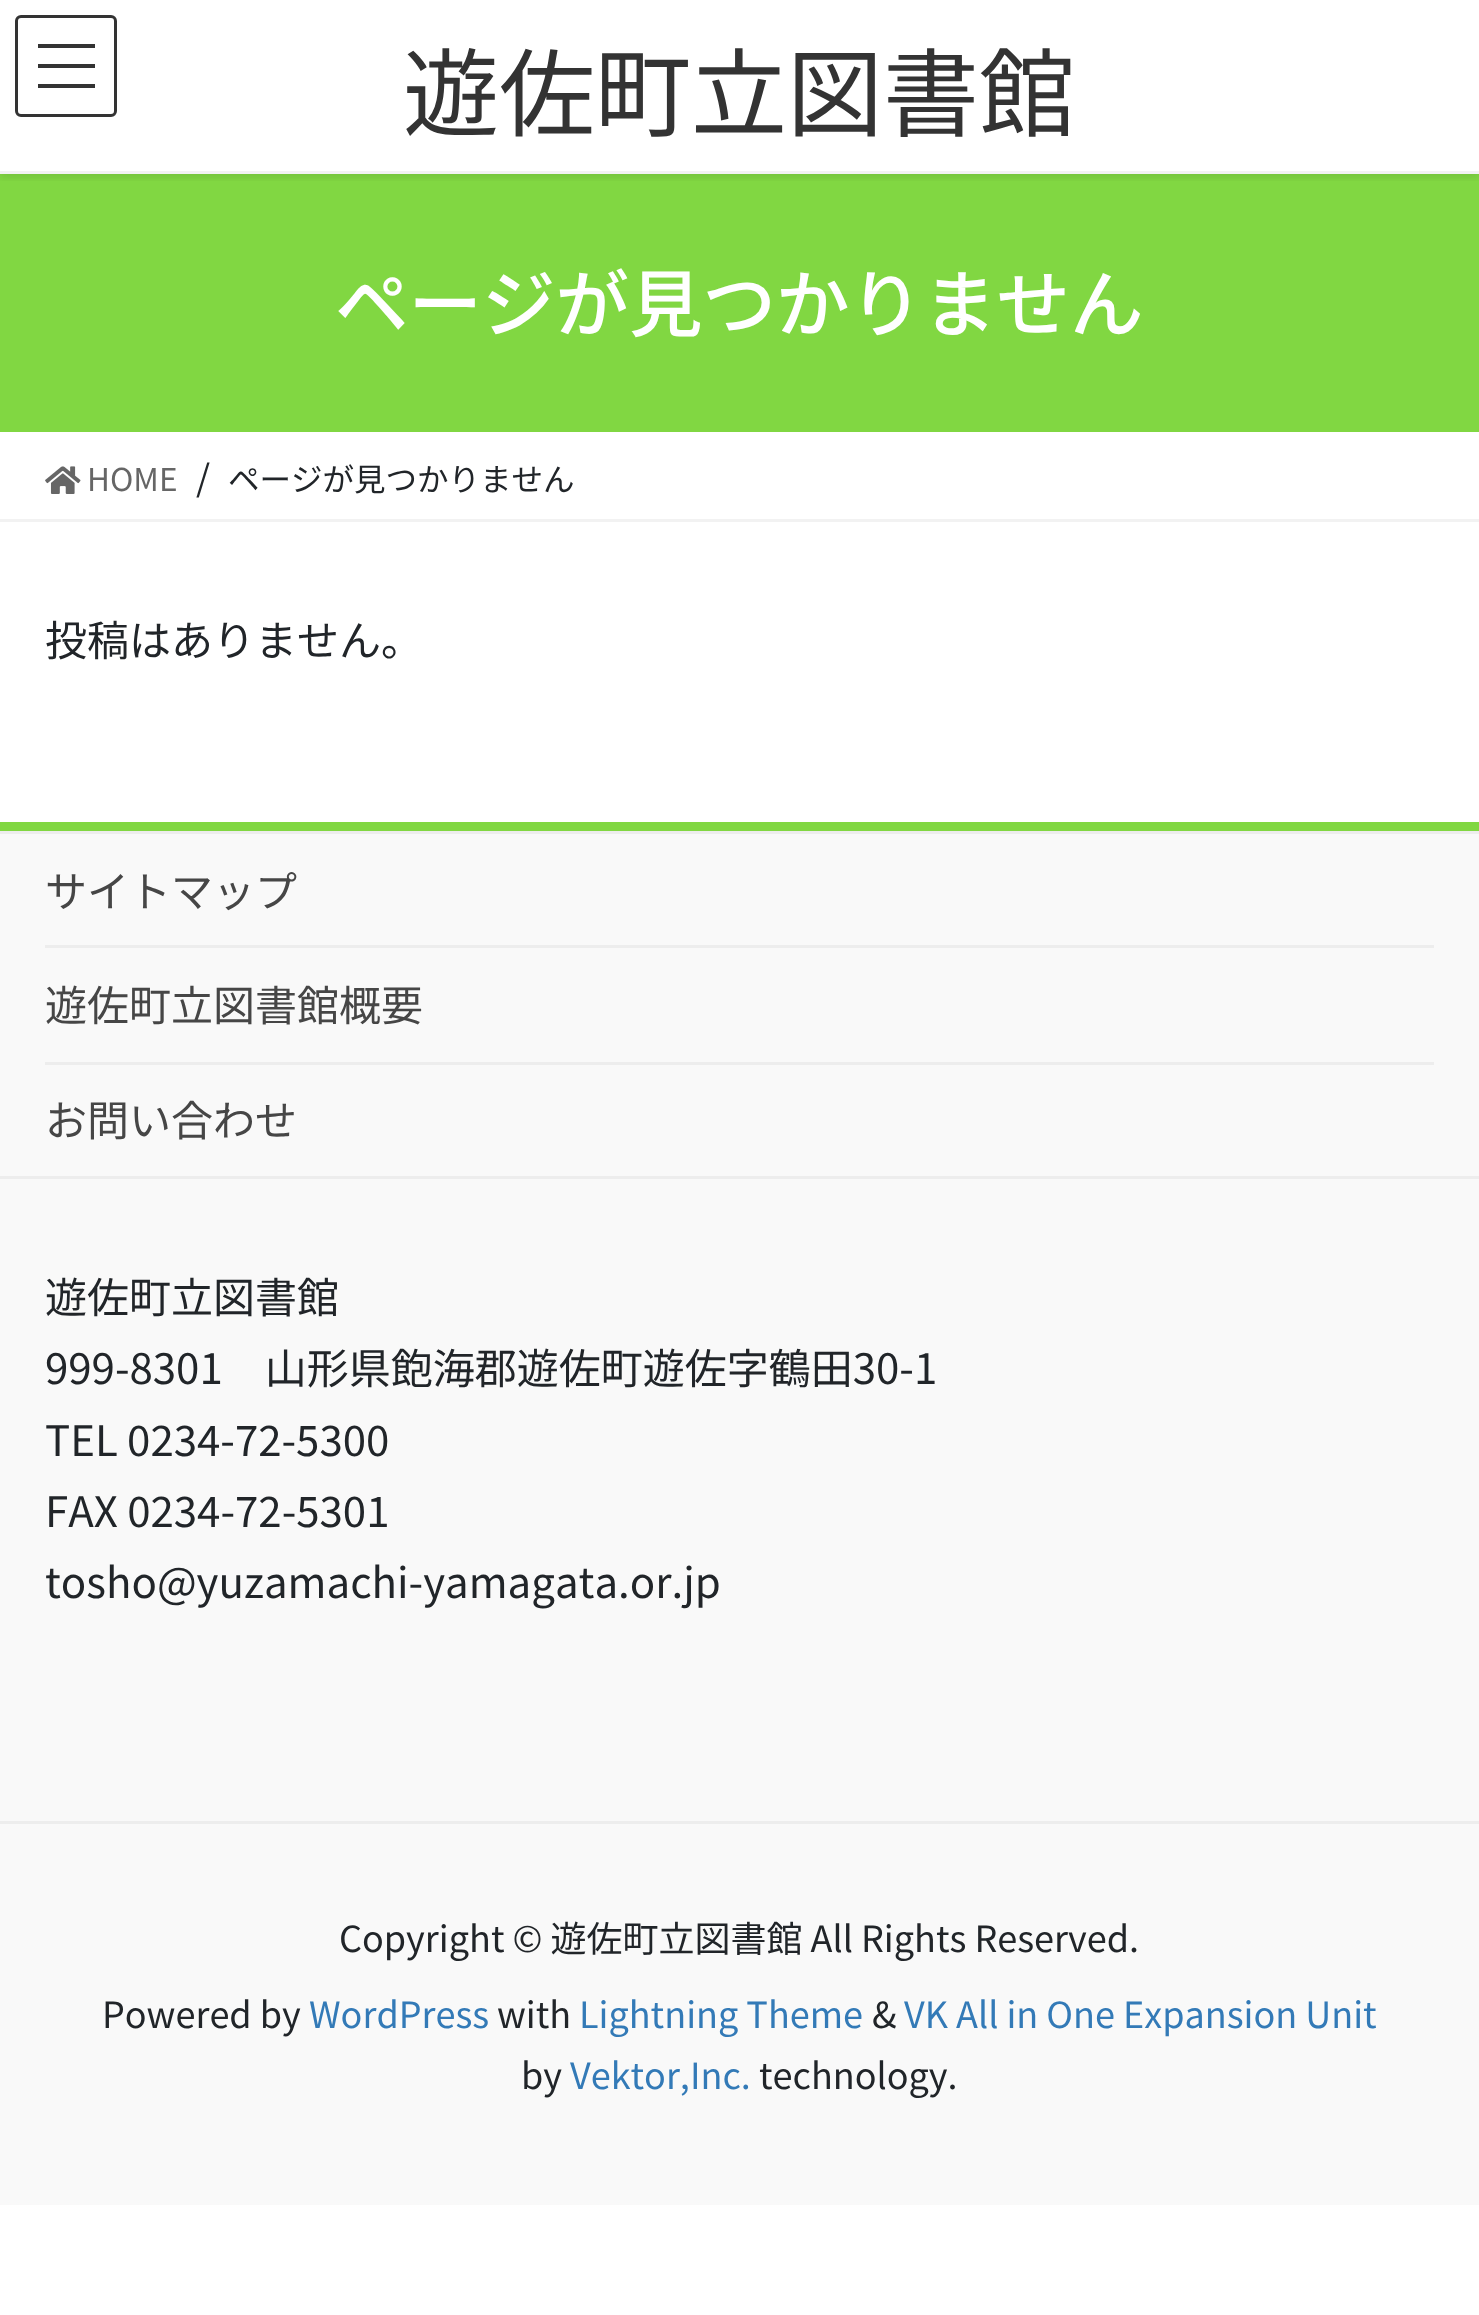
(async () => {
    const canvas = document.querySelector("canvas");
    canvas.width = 1479;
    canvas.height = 2315;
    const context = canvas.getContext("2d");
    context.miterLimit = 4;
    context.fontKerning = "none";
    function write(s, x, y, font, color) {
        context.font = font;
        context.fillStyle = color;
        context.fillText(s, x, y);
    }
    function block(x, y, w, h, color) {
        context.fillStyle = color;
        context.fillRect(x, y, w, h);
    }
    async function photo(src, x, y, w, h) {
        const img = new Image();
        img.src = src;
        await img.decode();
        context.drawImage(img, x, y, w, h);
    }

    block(0, 0, 1479, 2315, "rgb(255, 255, 255)");
    block(0, 174, 1479, 258, "rgb(129, 215, 66)");
    context.save();
    context.beginPath();
    context.rect(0, 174, 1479, 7);
    context.clip();
    context.fillStyle = "rgba(0, 0, 0, 0.1)";
    context.filter = "blur(4.5px)";
    context.beginPath();
    context.rect(0, 3, 1479, 174);
    context.fill();
    context.filter = "none";
    context.restore();
    block(38, 44, 57, 4, "rgb(51, 51, 51)");
    block(38, 64, 57, 4, "rgb(51, 51, 51)");
    block(38, 84, 57, 4, "rgb(51, 51, 51)");
    context.beginPath();
    context.roundRect(16.5, 16.5, 99, 99, 4.5);
    context.strokeStyle = "rgb(51, 51, 51)";
    context.lineWidth = 3;
    context.stroke();
    block(0, 171, 1479, 3, "rgb(242, 242, 242)");
    write("遊佐町立図書館", 403, 129, "96px Noto Sans JP", "rgb(51, 51, 51)");
    write("ページが見つかりません", 335, 331, "500 73.5px Noto Sans JP", "rgb(255, 255, 255)");
    block(0, 519, 1479, 3, "rgb(242, 242, 242)");
    await photo("media/1.png", 45, 466, 36, 28);
    write("HOME", 87, 491, "31.5px Noto Sans JP", "rgb(102, 102, 102)");
    write("/", 196, 491, "36px Noto Sans JP", "rgb(33, 37, 41)");
    write("ページが見つかりません", 228, 491, "31.5px Noto Sans JP", "rgb(33, 37, 41)");
    write("投稿はありません。", 45, 656, "42px Noto Sans JP", "rgb(33, 37, 41)");
    block(0, 834, 1479, 1371, "rgb(249, 249, 249)");
    block(0, 822, 1479, 9, "rgb(129, 215, 66)");
    block(0, 831, 1479, 3, "rgb(237, 237, 237)");
    block(0, 1176, 1479, 3, "rgb(237, 237, 237)");
    block(45, 945, 1389, 3, "rgb(237, 237, 237)");
    write("サイトマップ", 45, 907, "42px Noto Sans JP", "rgb(70, 70, 70)");
    block(45, 1062, 1389, 3, "rgb(237, 237, 237)");
    write("遊佐町立図書館概要", 45, 1021, "42px Noto Sans JP", "rgb(70, 70, 70)");
    write("お問い合わせ", 45, 1136, "42px Noto Sans JP", "rgb(70, 70, 70)");
    write("遊佐町立図書館", 45, 1313, "42px Noto Sans JP", "rgb(33, 37, 41)");
    write("999-8301　山形県飽海郡遊佐町遊佐字鶴田30-1", 45, 1384, "42px Noto Sans JP", "rgb(33, 37, 41)");
    write("TEL 0234-72-5300", 45, 1456, "42px Noto Sans JP", "rgb(33, 37, 41)");
    write("FAX 0234-72-5301", 45, 1527, "42px Noto Sans JP", "rgb(33, 37, 41)");
    write("tosho@yuzamachi-yamagata.or.jp", 45, 1598, "42px Noto Sans JP", "rgb(33, 37, 41)");
    block(0, 1821, 1479, 3, "rgb(237, 237, 237)");
    write("Copyright © 遊佐町立図書館 All Rights Reserved.", 339, 1952, "36px Noto Sans JP", "rgb(33, 37, 41)");
    write("Powered by", 102, 2028, "36px Noto Sans JP", "rgb(33, 37, 41)");
    write("WordPress", 309, 2028, "36px Noto Sans JP", "rgb(51, 122, 183)");
    write("with", 497, 2028, "36px Noto Sans JP", "rgb(33, 37, 41)");
    write("Lightning Theme", 579, 2028, "36px Noto Sans JP", "rgb(51, 122, 183)");
    write("&", 872, 2028, "36px Noto Sans JP", "rgb(33, 37, 41)");
    write("VK All in One Expansion Unit", 904, 2028, "36px Noto Sans JP", "rgb(51, 122, 183)");
    write("by", 521, 2089, "36px Noto Sans JP", "rgb(33, 37, 41)");
    write("Vektor,Inc.", 570, 2089, "36px Noto Sans JP", "rgb(51, 122, 183)");
    write("technology.", 759, 2089, "36px Noto Sans JP", "rgb(33, 37, 41)");
})();
